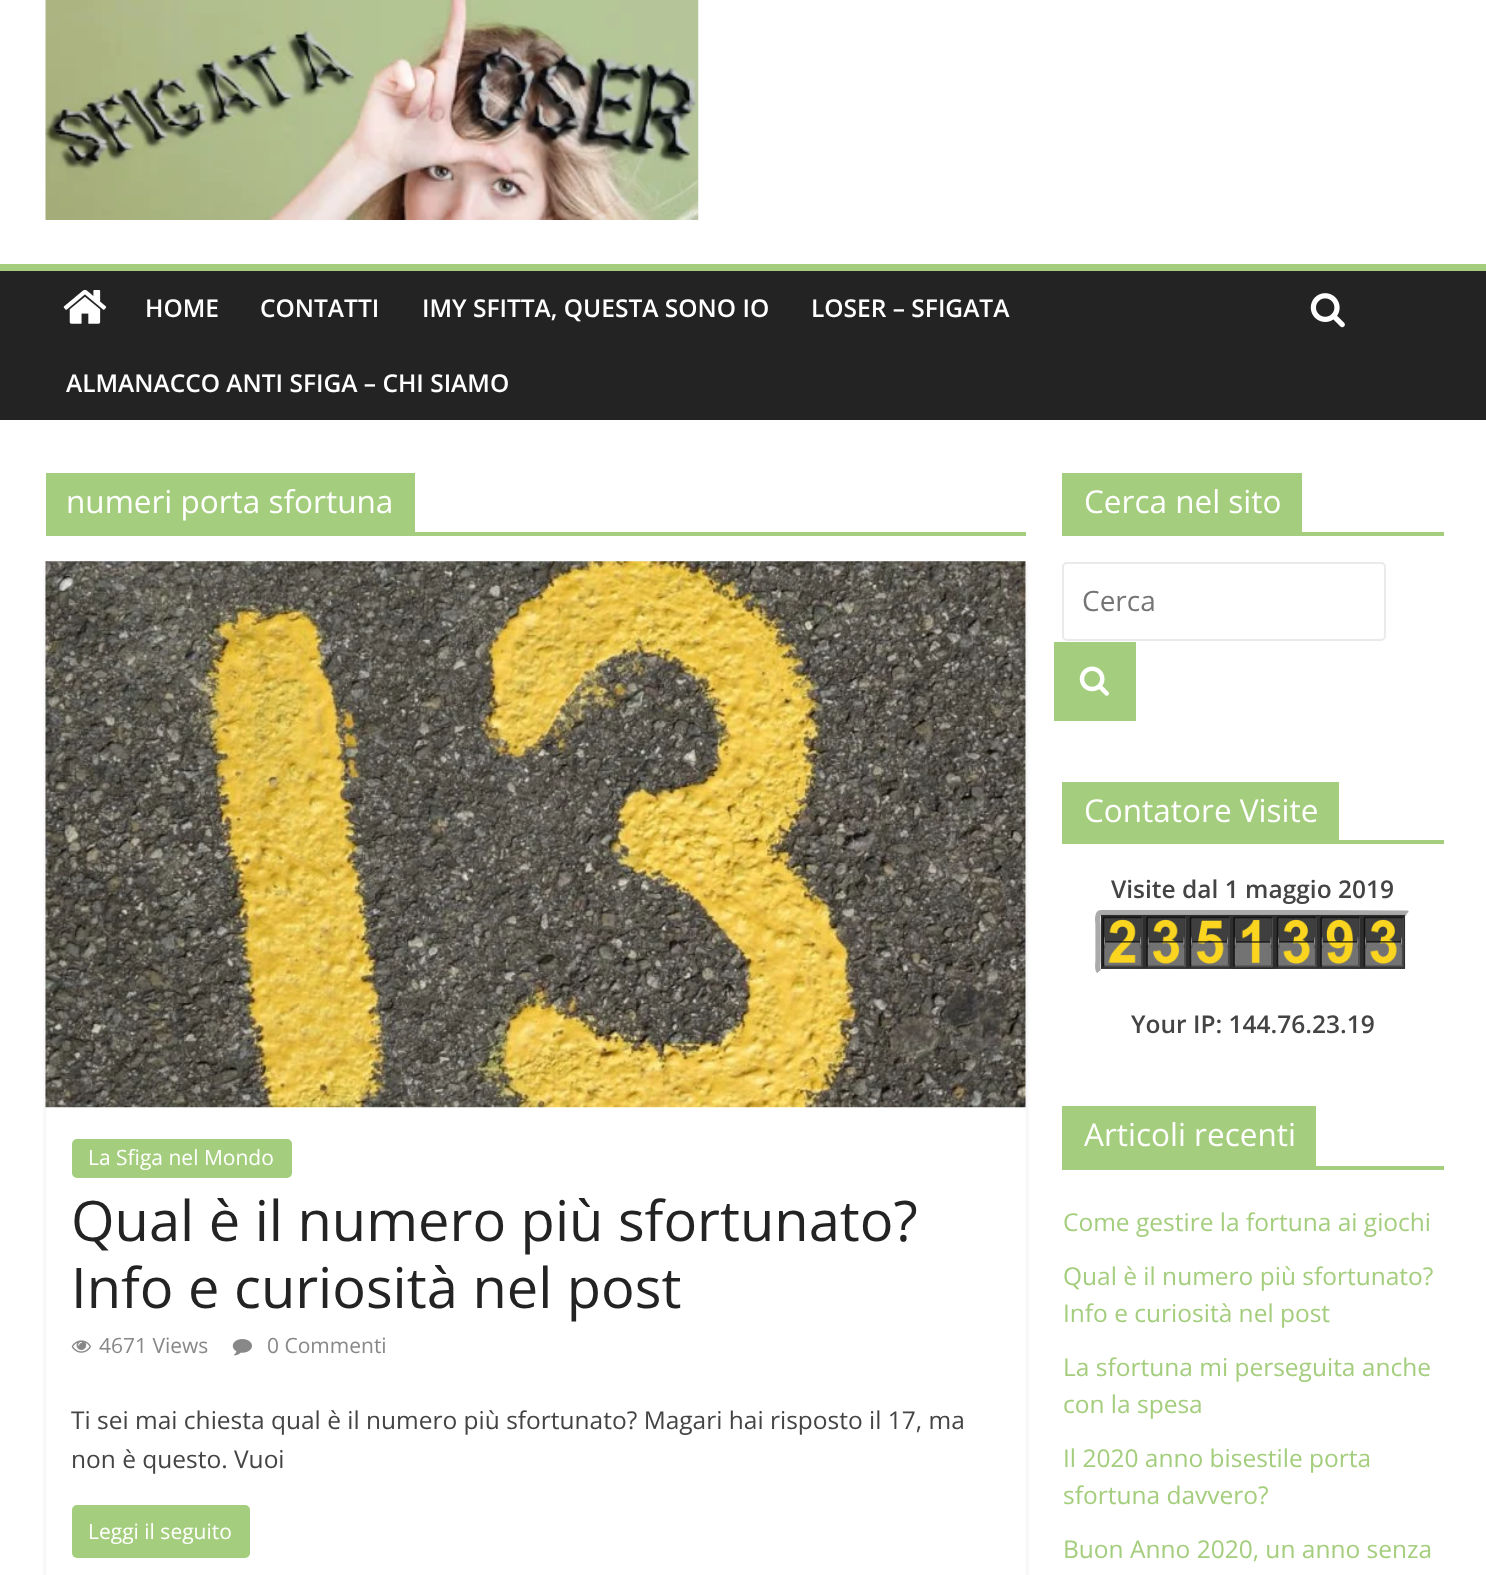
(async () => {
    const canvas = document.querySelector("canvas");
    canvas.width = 1486;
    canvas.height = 1575;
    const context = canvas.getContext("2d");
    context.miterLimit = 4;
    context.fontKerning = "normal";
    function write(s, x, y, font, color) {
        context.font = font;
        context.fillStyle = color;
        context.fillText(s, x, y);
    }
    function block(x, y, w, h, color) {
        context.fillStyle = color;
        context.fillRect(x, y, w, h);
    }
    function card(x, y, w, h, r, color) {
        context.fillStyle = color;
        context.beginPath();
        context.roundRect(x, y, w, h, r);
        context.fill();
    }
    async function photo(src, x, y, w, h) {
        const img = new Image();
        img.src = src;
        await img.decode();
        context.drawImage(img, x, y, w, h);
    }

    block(0, 0, 1486, 1575, "rgb(255, 255, 255)");
    await photo("media/1.png", 45, 0, 654, 220);
    block(0, 271, 1486, 149, "rgb(35, 35, 35)");
    block(0, 264, 1486, 7, "rgb(164, 206, 125)");
    await photo("media/2.png", 63, 289, 44, 35);
    await photo("media/3.png", 1310, 293, 35, 35);
    write("HOME", 145, 317, "600 24.5px Open Sans", "rgb(255, 255, 255)");
    write("CONTATTI", 260, 317, "600 24.5px Open Sans", "rgb(255, 255, 255)");
    write("IMY SFITTA, QUESTA SONO IO", 422, 317, "600 24.5px Open Sans", "rgb(255, 255, 255)");
    write("LOSER – SFIGATA", 811, 317, "600 24.5px Open Sans", "rgb(255, 255, 255)");
    write("ALMANACCO ANTI SFIGA – CHI SIAMO", 66, 392, "600 24.5px Open Sans", "rgb(255, 255, 255)");
    block(46, 532, 980, 4, "rgb(164, 206, 125)");
    block(46, 473, 369, 59, "rgb(164, 206, 125)");
    write("numeri porta sfortuna", 66, 513, "31.5px Open Sans", "rgb(255, 255, 255)");
    context.save();
    context.beginPath();
    context.moveTo(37, 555);
    context.lineTo(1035, 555);
    context.lineTo(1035, 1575);
    context.lineTo(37, 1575);
    context.closePath();
    context.moveTo(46, 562);
    context.lineTo(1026, 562);
    context.lineTo(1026, 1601);
    context.lineTo(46, 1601);
    context.closePath();
    context.clip("evenodd");
    context.fillStyle = "rgba(0, 0, 0, 0.1)";
    context.filter = "blur(2.5px)";
    context.beginPath();
    context.rect(46, 564, 980, 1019);
    context.fill();
    context.filter = "none";
    context.restore();
    await photo("media/4.png", 45, 561, 981, 547);
    card(72, 1139, 220, 39, 5, "rgb(164, 206, 125)");
    write("La Sfiga nel Mondo", 88, 1165, "21px Open Sans", "rgb(255, 255, 255)");
    write("Qual è il numero più sfortunato?", 71, 1241, "56px Open Sans", "rgb(35, 35, 35)");
    write("Info e curiosità nel post", 71, 1308, "56px Open Sans", "rgb(35, 35, 35)");
    await photo("media/5.png", 71, 1340, 20, 13);
    write("4671 Views", 99, 1353, "21px Open Sans", "rgb(136, 136, 136)");
    await photo("media/6.png", 232, 1339, 20, 17);
    write("0 Commenti", 267, 1353, "21px Open Sans", "rgb(136, 136, 136)");
    write("Ti sei mai chiesta qual è il numero più sfortunato? Magari hai risposto il 17, ma", 71, 1429, "24.5px Open Sans", "rgb(68, 68, 68)");
    write("non è questo. Vuoi", 71, 1468, "24.5px Open Sans", "rgb(68, 68, 68)");
    card(72, 1505, 178, 53, 5, "rgb(164, 206, 125)");
    write("Leggi il seguito", 88, 1539, "21px Open Sans", "rgb(255, 255, 255)");
    block(1062, 532, 382, 4, "rgb(164, 206, 125)");
    block(1062, 473, 240, 59, "rgb(164, 206, 125)");
    write("Cerca nel sito", 1084, 513, "31.5px Open Sans", "rgb(255, 255, 255)");
    context.beginPath();
    context.roundRect(1063, 563, 322, 77, 4);
    context.strokeStyle = "rgb(234, 234, 234)";
    context.lineWidth = 2;
    context.stroke();
    write("Cerca", 1082, 611, "28px Open Sans", "rgb(117, 117, 117)");
    block(1054, 642, 82, 79, "rgb(164, 206, 125)");
    await photo("media/7.png", 1079, 666, 30, 30);
    block(1062, 840, 382, 4, "rgb(164, 206, 125)");
    block(1062, 782, 277, 58, "rgb(164, 206, 125)");
    write("Contatore Visite", 1084, 822, "31.5px Open Sans", "rgb(255, 255, 255)");
    write("Visite dal 1 maggio 2019", 1111, 898, "600 24.5px Open Sans", "rgb(68, 68, 68)");
    context.beginPath();
    context.moveTo(1099, 971.5);
    context.bezierCurveTo(1096.5, 968.5, 1098, 964, 1098, 960.5);
    context.lineTo(1098, 924.5);
    context.bezierCurveTo(1098, 924, 1096, 912.5, 1101, 912.5);
    context.lineTo(1304, 912.5);
    context.lineTo(1406.5, 913);
    context.lineTo(1407, 913.5);
    context.strokeStyle = "rgb(170, 170, 170)";
    context.lineWidth = 5.2;
    context.stroke();
    await photo("media/8.png", 1100, 914, 306, 55);
    write("Your IP: 144.76.23.19", 1131, 1033, "600 24.5px Open Sans", "rgb(68, 68, 68)");
    block(1062, 1166, 382, 4, "rgb(164, 206, 125)");
    block(1062, 1106, 254, 60, "rgb(164, 206, 125)");
    write("Articoli recenti", 1084, 1146, "31.5px Open Sans", "rgb(255, 255, 255)");
    write("Come gestire la fortuna ai giochi", 1063, 1231, "24.5px Open Sans", "rgb(164, 206, 125)");
    write("Qual è il numero più sfortunato?", 1063, 1285, "24.5px Open Sans", "rgb(164, 206, 125)");
    write("Info e curiosità nel post", 1063, 1322, "24.5px Open Sans", "rgb(164, 206, 125)");
    write("La sfortuna mi perseguita anche", 1063, 1376, "24.5px Open Sans", "rgb(164, 206, 125)");
    write("con la spesa", 1063, 1413, "24.5px Open Sans", "rgb(164, 206, 125)");
    write("Il 2020 anno bisestile porta", 1063, 1467, "24.5px Open Sans", "rgb(164, 206, 125)");
    write("sfortuna davvero?", 1063, 1504, "24.5px Open Sans", "rgb(164, 206, 125)");
    write("Buon Anno 2020, un anno senza", 1063, 1558, "24.5px Open Sans", "rgb(164, 206, 125)");
})();
